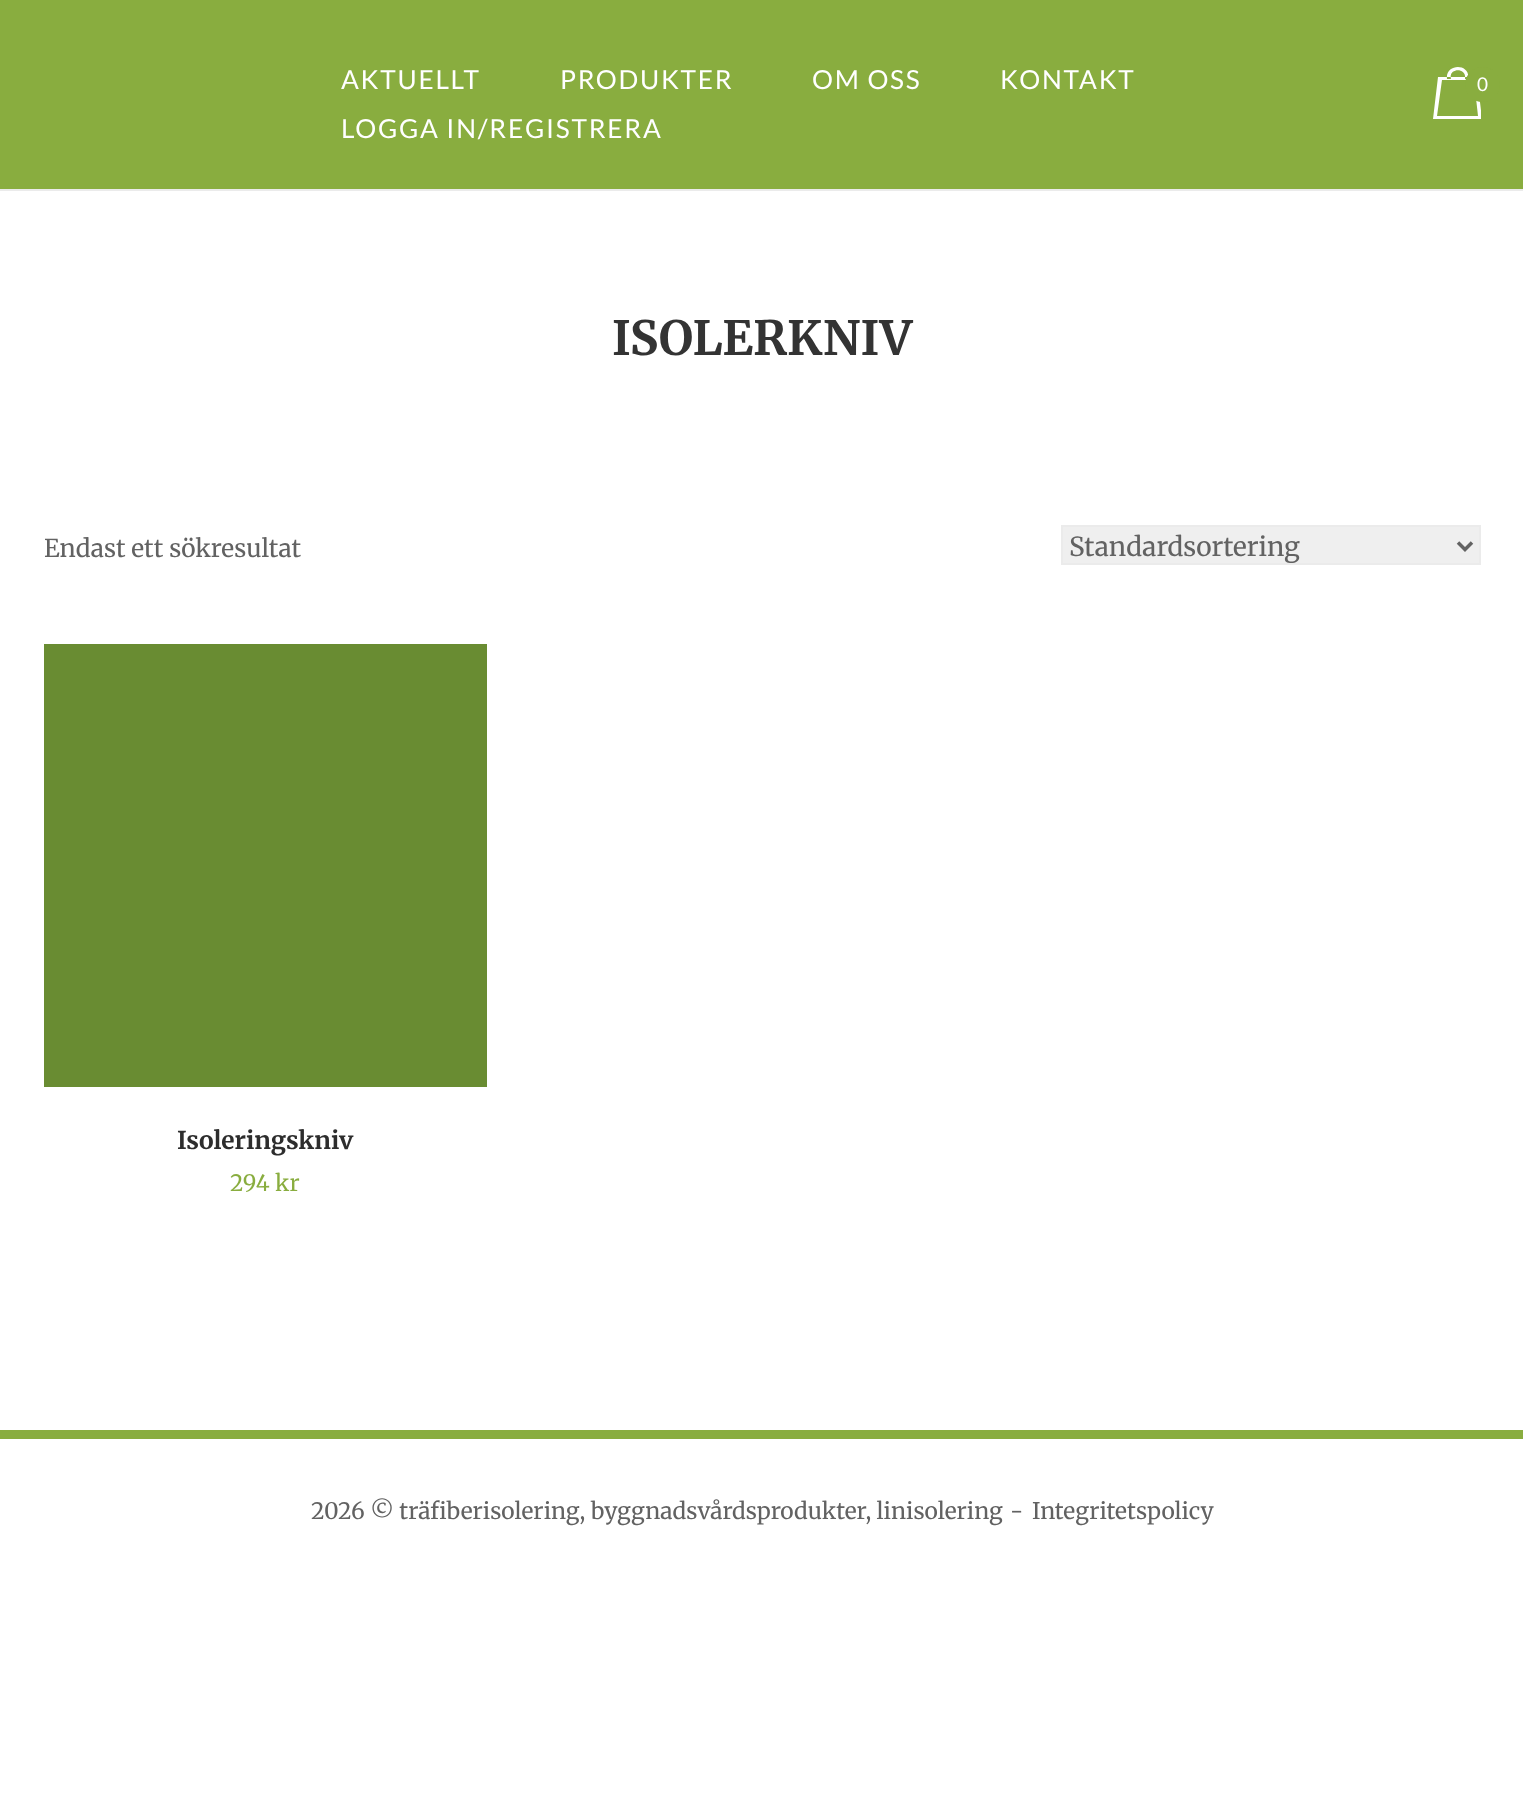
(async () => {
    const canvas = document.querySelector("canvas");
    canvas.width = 1523;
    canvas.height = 1811;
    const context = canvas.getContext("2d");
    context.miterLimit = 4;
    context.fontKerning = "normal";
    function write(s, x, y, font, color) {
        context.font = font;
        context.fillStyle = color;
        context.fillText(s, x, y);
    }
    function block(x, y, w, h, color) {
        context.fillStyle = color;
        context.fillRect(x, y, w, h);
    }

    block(0, 0, 1523, 1811, "rgb(255, 255, 255)");
    block(0, 189, 1523, 2, "rgb(235, 235, 235)");
    block(0, 0, 1523, 189, "rgb(137, 173, 63)");
    context.letterSpacing = "1.75px";
    write("AKTUELLT", 341, 89, "26.25px Lato", "rgb(255, 255, 255)");
    write("PRODUKTER", 560, 89, "26.25px Lato", "rgb(255, 255, 255)");
    write("OM OSS", 812, 89, "26.25px Lato", "rgb(255, 255, 255)");
    write("KONTAKT", 1000, 89, "26.25px Lato", "rgb(255, 255, 255)");
    write("LOGGA IN/REGISTRERA", 341, 138, "26.25px Lato", "rgb(255, 255, 255)");
    context.save();
    context.beginPath();
    context.rect(1433, 67, 48, 56);
    context.clip();
    context.beginPath();
    context.moveTo(1465, 79);
    context.bezierCurveTo(1467, 67, 1448, 68, 1451, 79);
    context.lineTo(1447, 79);
    context.bezierCurveTo(1445, 63, 1471, 63, 1468, 79);
    context.closePath();
    context.moveTo(1477, 77);
    context.lineTo(1438, 77);
    context.lineTo(1433, 119);
    context.lineTo(1482, 119);
    context.closePath();
    context.moveTo(1442, 80);
    context.lineTo(1474, 80);
    context.lineTo(1478, 116);
    context.lineTo(1437, 116);
    context.closePath();
    context.fill();
    context.restore();
    context.fillStyle = "rgb(137, 173, 63)";
    context.beginPath();
    context.arc(1482.5, 84.5, 17.5, 0, Math.PI * 2);
    context.fill();
    context.letterSpacing = "0px";
    write("0", 1477, 91, "19px Lato", "rgb(255, 255, 255)");
    write("ISOLERKNIV", 612, 355, "bold 47.25px Merriweather", "rgb(51, 51, 51)");
    write("Endast ett sökresultat", 44, 557, "24.5px Merriweather", "rgb(98, 98, 98)");
    context.fillStyle = "rgb(239, 239, 239)";
    context.beginPath();
    context.rect(1062, 526, 418, 38);
    context.fill();
    context.strokeStyle = "rgb(235, 235, 235)";
    context.lineWidth = 2;
    context.stroke();
    context.beginPath();
    context.moveTo(1458, 542.5);
    context.lineTo(1465, 549.5);
    context.lineTo(1472, 542.5);
    context.strokeStyle = "rgb(98, 98, 98)";
    context.lineWidth = 3.5;
    context.stroke();
    write("Standardsortering", 1069, 556, "26.25px Merriweather", "rgb(98, 98, 98)");
    block(44, 644, 443, 443, "rgb(105, 140, 50)");
    write("Isoleringskniv", 177, 1149, "bold 24.5px Merriweather", "rgb(45, 45, 45)");
    write("294 kr", 230, 1191, "22.5px Merriweather", "rgb(137, 173, 63)");
    block(0, 1430, 1523, 9, "rgb(137, 173, 63)");
    write("2026 © träfiberisolering, byggnadsvårdsprodukter, linisolering", 311, 1519, "22.75px Merriweather", "rgb(98, 98, 98)");
    write("-", 1010, 1519, "22.75px Merriweather", "rgb(98, 98, 98)");
    write("Integritetspolicy", 1032, 1519, "22.75px Merriweather", "rgb(98, 98, 98)");
})();
